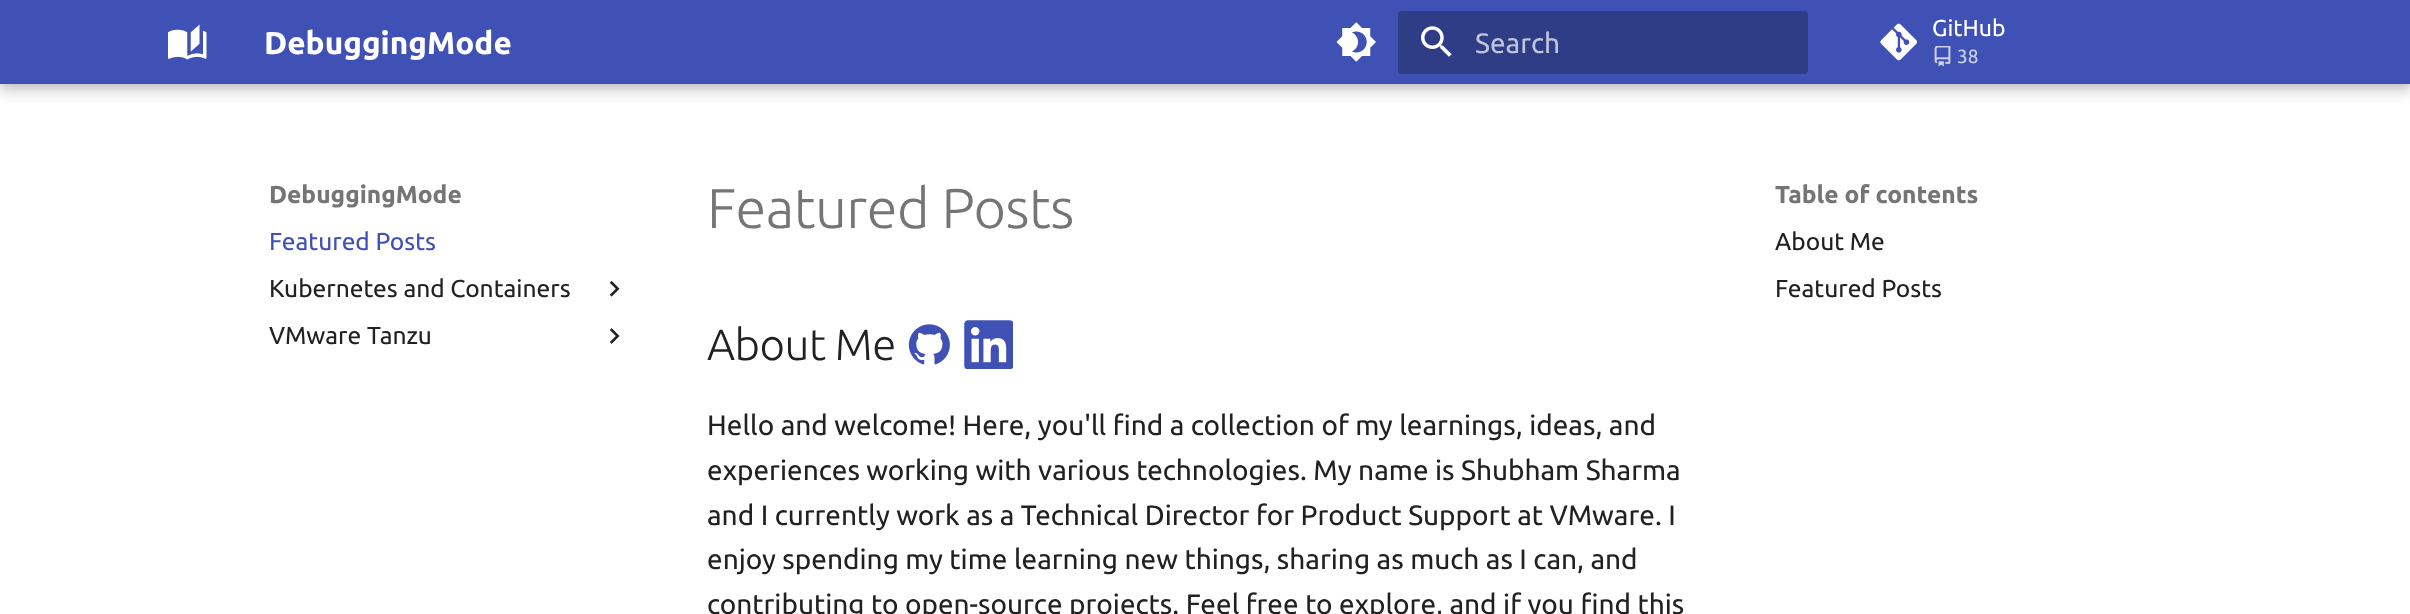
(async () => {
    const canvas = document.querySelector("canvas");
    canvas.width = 2410;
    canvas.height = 614;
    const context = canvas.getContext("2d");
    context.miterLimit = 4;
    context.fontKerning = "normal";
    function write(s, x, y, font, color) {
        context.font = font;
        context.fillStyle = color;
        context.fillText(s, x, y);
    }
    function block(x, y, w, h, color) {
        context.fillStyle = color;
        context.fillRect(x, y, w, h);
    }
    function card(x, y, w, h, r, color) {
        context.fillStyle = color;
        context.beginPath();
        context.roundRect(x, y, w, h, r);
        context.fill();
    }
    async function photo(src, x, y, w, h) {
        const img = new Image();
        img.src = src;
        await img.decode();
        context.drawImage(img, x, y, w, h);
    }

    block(0, 0, 2410, 614, "rgb(255, 255, 255)");
    context.fillStyle = "rgba(0, 0, 0, 0.2)";
    context.filter = "blur(7px)";
    context.beginPath();
    context.rect(0, 7, 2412, 84);
    context.fill();
    context.filter = "none";
    context.fillStyle = "rgba(0, 0, 0, 0.1)";
    context.filter = "blur(3.5px)";
    context.beginPath();
    context.rect(0, 0, 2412, 84);
    context.fill();
    context.filter = "none";
    block(0, 0, 2410, 84, "rgb(64, 81, 181)");
    await photo("media/1.png", 168, 24, 39, 36);
    write("DebuggingMode", 264, 54, "bold 31.5px Ubuntu", "rgb(255, 255, 255)");
    await photo("media/2.png", 1336, 22, 40, 40);
    card(1398, 11, 410, 63, 4, "rgb(47, 60, 134)");
    await photo("media/3.png", 1421, 26, 31, 31);
    write("Search", 1475, 53, "28px Ubuntu", "rgb(193, 197, 219)");
    await photo("media/4.png", 1880, 23, 38, 38);
    write("GitHub", 1932, 36, "23px Ubuntu", "rgb(255, 255, 255)");
    await photo("media/5.png", 1934, 46, 17, 21);
    write("38", 1957, 63, "19px Ubuntu", "rgb(207, 212, 237)");
    context.save();
    context.beginPath();
    context.rect(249, 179, 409, 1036);
    context.clip();
    context.beginPath();
    context.moveTo(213, 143);
    context.lineTo(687, 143);
    context.lineTo(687, 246);
    context.lineTo(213, 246);
    context.closePath();
    context.moveTo(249, 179);
    context.lineTo(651, 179);
    context.lineTo(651, 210);
    context.lineTo(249, 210);
    context.closePath();
    context.clip("evenodd");
    context.fillStyle = "rgb(255, 255, 255)";
    context.filter = "blur(7px)";
    context.beginPath();
    context.rect(235, 165, 430, 59);
    context.fill();
    context.filter = "none";
    context.restore();
    write("DebuggingMode", 269, 203, "bold 24.5px Ubuntu", "rgb(117, 117, 117)");
    write("Featured Posts", 269, 250, "24.5px Ubuntu", "rgb(64, 81, 181)");
    write("Kubernetes and Containers", 269, 297, "24.5px Ubuntu", "rgb(33, 33, 33)");
    await photo("media/6.png", 609, 281, 11, 16);
    write("VMware Tanzu", 269, 344, "24.5px Ubuntu", "rgb(33, 33, 33)");
    await photo("media/7.png", 610, 328, 10, 16);
    context.letterSpacing = "-0.5px";
    write("Featured Posts", 707, 228, "300 56px Ubuntu", "rgb(117, 117, 117)");
    write("About Me", 707, 360, "300 43.75px Ubuntu", "rgb(33, 33, 33)");
    await photo("media/8.png", 908, 324, 42, 41);
    await photo("media/9.png", 964, 320, 49, 49);
    context.letterSpacing = "0px";
    write("Hello and welcome! Here, you'll find a collection of my learnings, ideas, and", 707, 435, "28px Ubuntu", "rgb(33, 33, 33)");
    write("experiences working with various technologies. My name is Shubham Sharma", 707, 480, "28px Ubuntu", "rgb(33, 33, 33)");
    write("and I currently work as a Technical Director for Product Support at VMware. I", 707, 525, "28px Ubuntu", "rgb(33, 33, 33)");
    write("enjoy spending my time learning new things, sharing as much as I can, and", 707, 569, "28px Ubuntu", "rgb(33, 33, 33)");
    write("contributing to open-source projects. Feel free to explore, and if you find this", 707, 614, "28px Ubuntu", "rgb(33, 33, 33)");
    context.save();
    context.beginPath();
    context.rect(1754, 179, 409, 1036);
    context.clip();
    context.beginPath();
    context.moveTo(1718, 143);
    context.lineTo(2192, 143);
    context.lineTo(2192, 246);
    context.lineTo(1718, 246);
    context.closePath();
    context.moveTo(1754, 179);
    context.lineTo(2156, 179);
    context.lineTo(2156, 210);
    context.lineTo(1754, 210);
    context.closePath();
    context.clip("evenodd");
    context.fillStyle = "rgb(255, 255, 255)";
    context.filter = "blur(7px)";
    context.beginPath();
    context.rect(1740, 165, 430, 59);
    context.fill();
    context.filter = "none";
    context.restore();
    write("Table of contents", 1775, 203, "bold 24.5px Ubuntu", "rgb(117, 117, 117)");
    write("About Me", 1775, 250, "24.5px Ubuntu", "rgb(33, 33, 33)");
    write("Featured Posts", 1775, 297, "24.5px Ubuntu", "rgb(33, 33, 33)");
})();
